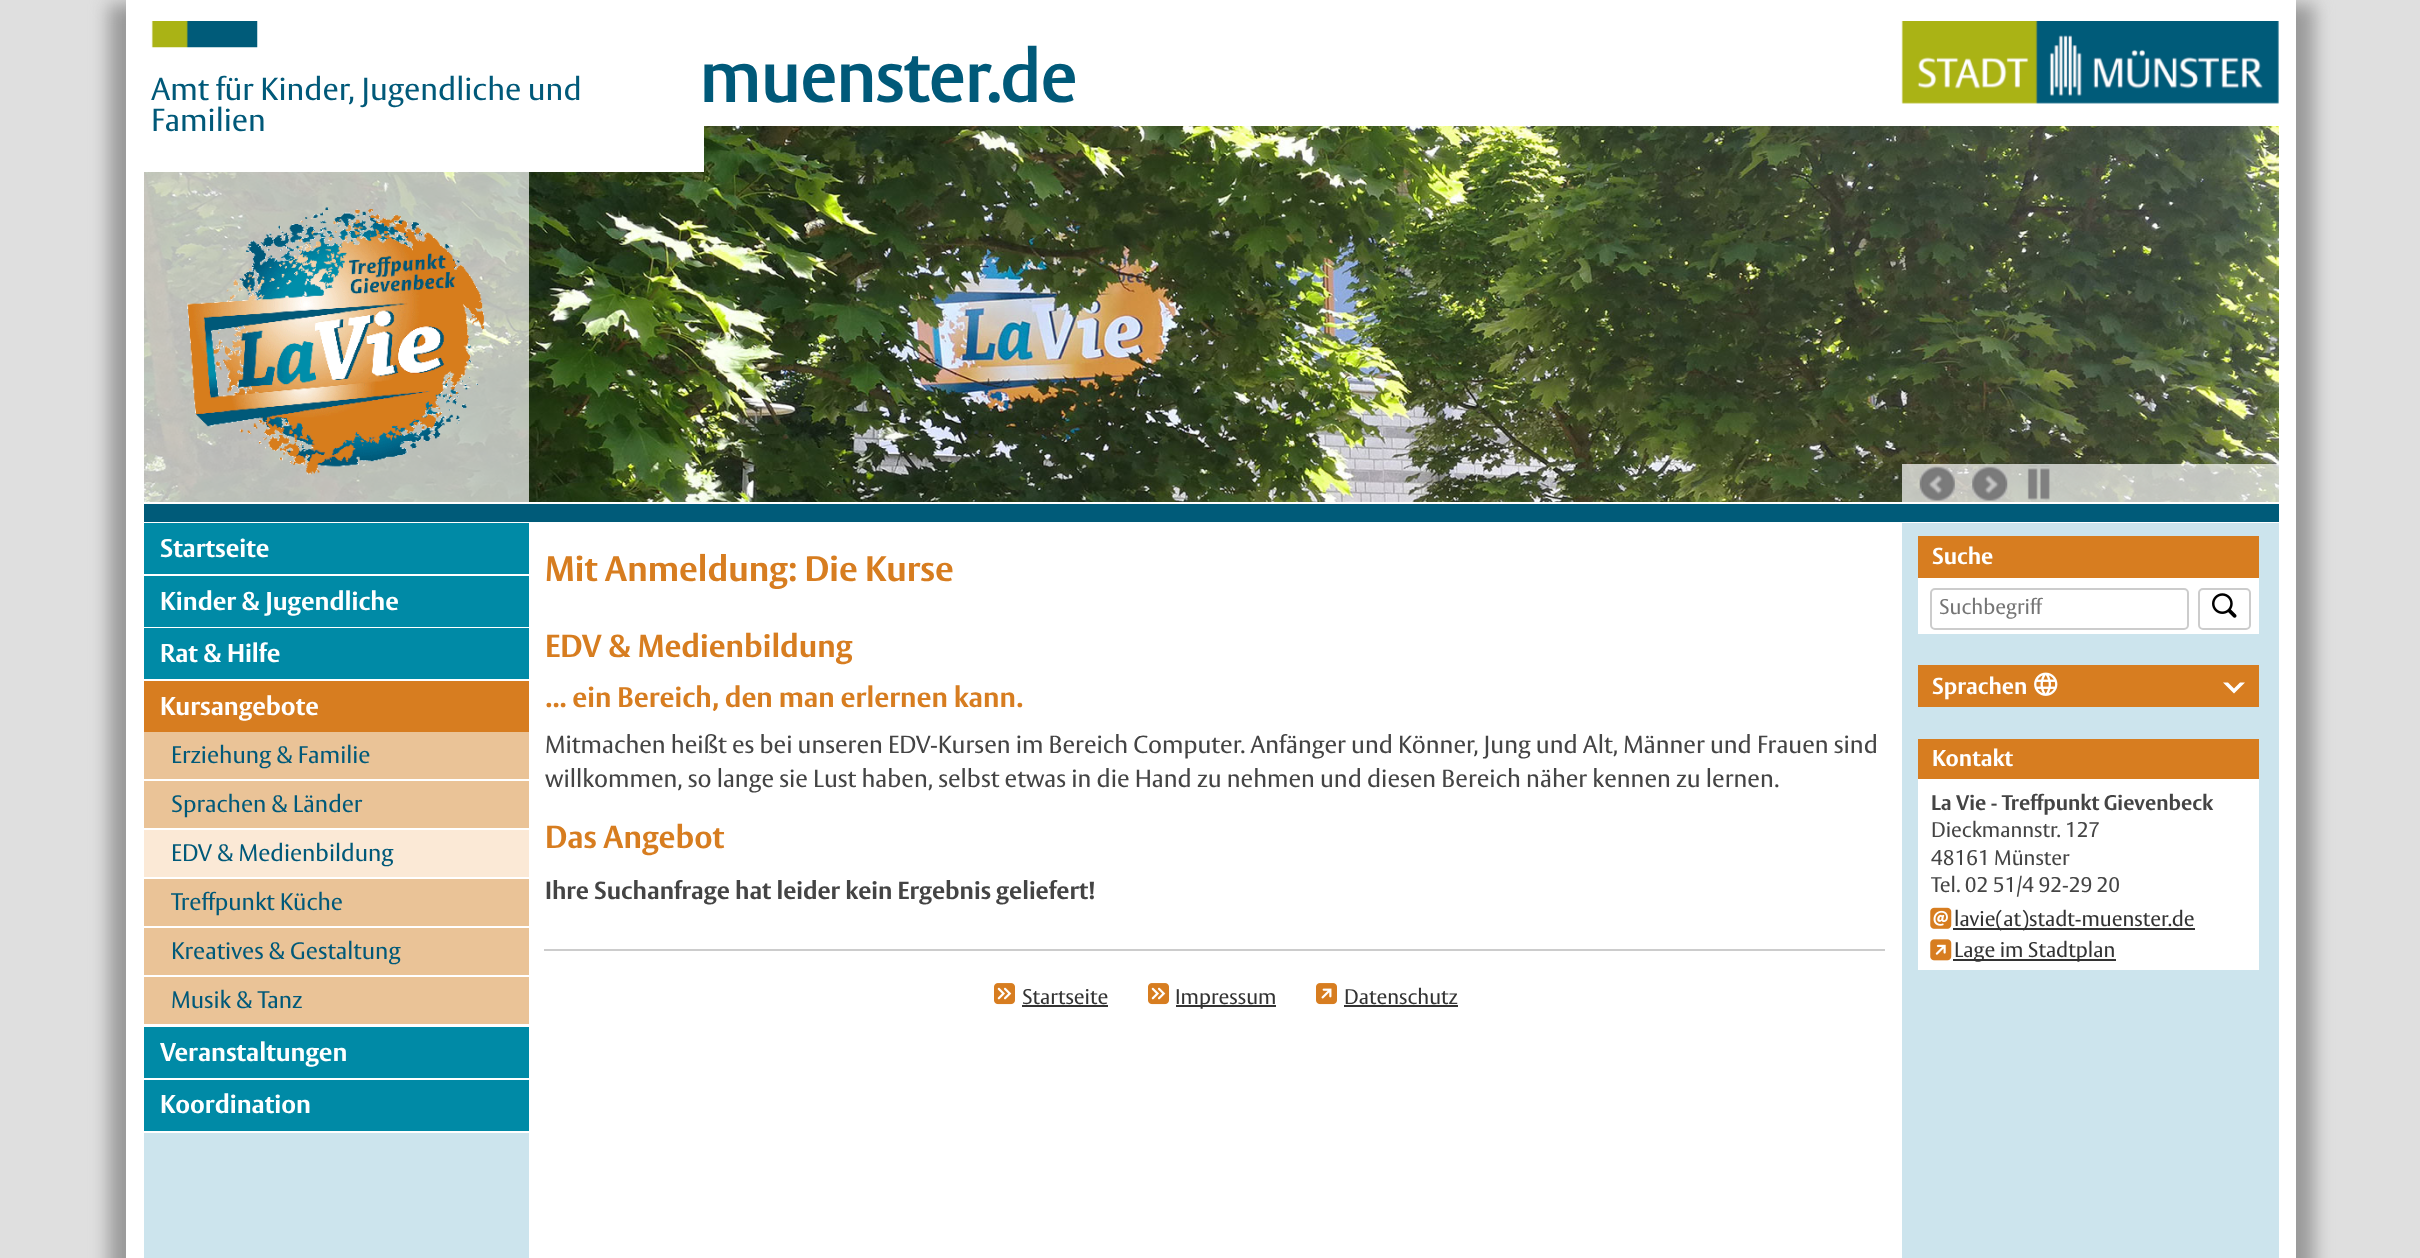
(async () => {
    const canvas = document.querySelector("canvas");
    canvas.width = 2420;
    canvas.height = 1258;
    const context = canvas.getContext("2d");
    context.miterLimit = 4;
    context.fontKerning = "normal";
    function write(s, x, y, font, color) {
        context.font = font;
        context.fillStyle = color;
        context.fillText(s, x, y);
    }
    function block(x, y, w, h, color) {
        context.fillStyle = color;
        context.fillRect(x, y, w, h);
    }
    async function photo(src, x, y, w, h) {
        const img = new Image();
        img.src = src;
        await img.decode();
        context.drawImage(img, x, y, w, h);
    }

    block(0, 0, 2420, 1258, "rgb(223, 223, 223)");
    context.fillStyle = "rgb(153, 153, 153)";
    context.filter = "blur(9px)";
    context.beginPath();
    context.rect(109, 4, 2170, 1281);
    context.fill();
    context.filter = "none";
    context.filter = "blur(9px)";
    context.beginPath();
    context.rect(144, 4, 2170, 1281);
    context.fill();
    context.filter = "none";
    block(126, 0, 2170, 1258, "rgb(255, 255, 255)");
    await photo("media/3.png", 144, 126, 2135, 376);
    block(144, 126, 560, 46, "rgb(255, 255, 255)");
    await photo("media/1.png", 151, 21, 107, 27);
    write("Amt für Kinder, Jugendliche und", 151, 100, "31.5px 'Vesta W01'", "rgb(0, 89, 121)");
    write("Familien", 151, 131, "31.5px 'Vesta W01'", "rgb(0, 89, 121)");
    write("muenster.de", 699, 102, "bold 70px 'Vesta W01'", "rgb(0, 89, 121)");
    await photo("media/2.png", 1901, 21, 378, 83);
    block(1902, 464, 377, 38, "rgba(255, 255, 255, 0.7)");
    await photo("media/4.png", 1919, 466, 36, 35);
    await photo("media/5.png", 1972, 466, 36, 35);
    await photo("media/6.png", 2027, 465, 23, 35);
    block(144, 172, 385, 330, "rgba(255, 255, 255, 0.7)");
    await photo("media/7.png", 187, 207, 297, 268);
    block(144, 504, 2135, 18, "rgb(0, 91, 121)");
    block(144, 1133, 385, 125, "rgb(204, 228, 237)");
    block(144, 523, 385, 51, "rgb(0, 138, 166)");
    write("Startseite", 160, 557, "bold 25.4px 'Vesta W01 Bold'", "rgb(255, 255, 255)");
    block(144, 576, 385, 51, "rgb(0, 138, 166)");
    write("Kinder & Jugendliche", 160, 610, "bold 25.4px 'Vesta W01 Bold'", "rgb(255, 255, 255)");
    block(144, 628, 385, 51, "rgb(0, 138, 166)");
    write("Rat & Hilfe", 160, 662, "bold 25.4px 'Vesta W01 Bold'", "rgb(255, 255, 255)");
    block(144, 681, 385, 51, "rgb(215, 125, 32)");
    write("Kursangebote", 160, 715, "bold 25.4px 'Vesta W01 Bold'", "rgb(255, 255, 255)");
    block(144, 732, 385, 47, "rgb(234, 195, 151)");
    write("Erziehung & Familie", 171, 763, "23.6px 'Vesta W01'", "rgb(0, 89, 121)");
    block(144, 781, 385, 47, "rgb(234, 195, 151)");
    write("Sprachen & Länder", 171, 812, "23.6px 'Vesta W01'", "rgb(0, 89, 121)");
    block(144, 830, 385, 47, "rgb(251, 233, 214)");
    write("EDV & Medienbildung", 171, 861, "23.6px 'Vesta W01'", "rgb(0, 89, 121)");
    block(144, 879, 385, 47, "rgb(234, 195, 151)");
    write("Treffpunkt Küche", 171, 910, "23.6px 'Vesta W01'", "rgb(0, 89, 121)");
    block(144, 928, 385, 47, "rgb(234, 195, 151)");
    write("Kreatives & Gestaltung", 171, 959, "23.6px 'Vesta W01'", "rgb(0, 89, 121)");
    block(144, 977, 385, 47, "rgb(234, 195, 151)");
    write("Musik & Tanz", 171, 1008, "23.6px 'Vesta W01'", "rgb(0, 89, 121)");
    block(144, 1027, 385, 51, "rgb(0, 138, 166)");
    write("Veranstaltungen", 160, 1061, "bold 25.4px 'Vesta W01 Bold'", "rgb(255, 255, 255)");
    block(144, 1080, 385, 51, "rgb(0, 138, 166)");
    write("Koordination", 160, 1113, "bold 25.4px 'Vesta W01 Bold'", "rgb(255, 255, 255)");
    write("Mit Anmeldung: Die Kurse", 545, 581, "bold 35px 'Vesta W01 Bold'", "rgb(215, 125, 32)");
    write("EDV & Medienbildung", 545, 657, "bold 31.5px 'Vesta W01 Bold'", "rgb(215, 125, 32)");
    write("... ein Bereich, den man erlernen kann.", 545, 707, "bold 28px 'Vesta W01 Bold'", "rgb(215, 125, 32)");
    write("Mitmachen heißt es bei unseren EDV-Kursen im Bereich Computer. Anfänger und Könner, Jung und Alt, Männer und Frauen sind", 545, 753, "24.5px 'Vesta W01'", "rgb(68, 68, 68)");
    write("willkommen, so lange sie Lust haben, selbst etwas in die Hand zu nehmen und diesen Bereich näher kennen zu lernen.", 545, 787, "24.5px 'Vesta W01'", "rgb(68, 68, 68)");
    write("Das Angebot", 545, 848, "bold 31.5px 'Vesta W01 Bold'", "rgb(215, 125, 32)");
    write("Ihre Suchanfrage hat leider kein Ergebnis geliefert!", 545, 899, "bold 24.5px 'Vesta W01 Bold'", "rgb(68, 68, 68)");
    block(544, 949, 1341, 2, "rgb(204, 204, 204)");
    await photo("media/8.png", 994, 983, 21, 22);
    write("Startseite", 1022, 1004, "21px 'Vesta W01'", "rgb(51, 51, 51)");
    block(1022, 1005, 86, 2, "rgb(51, 51, 51)");
    await photo("media/8.png", 1148, 983, 21, 22);
    block(1176, 1005, 100, 2, "rgb(51, 51, 51)");
    write("Impressum", 1175, 1004, "21px 'Vesta W01'", "rgb(51, 51, 51)");
    await photo("media/9.png", 1316, 983, 21, 22);
    write("Datenschutz", 1344, 1004, "21px 'Vesta W01'", "rgb(51, 51, 51)");
    block(1344, 1005, 114, 2, "rgb(51, 51, 51)");
    block(1902, 523, 377, 735, "rgb(204, 228, 237)");
    block(1918, 578, 341, 56, "rgb(255, 255, 255)");
    block(1918, 536, 341, 42, "rgb(215, 125, 32)");
    write("Suche", 1932, 564, "bold 22.75px 'Vesta W01 Bold'", "rgb(255, 255, 255)");
    context.beginPath();
    context.roundRect(1931, 589, 257, 40, 4);
    context.strokeStyle = "rgb(204, 204, 204)";
    context.lineWidth = 2;
    context.stroke();
    write("Suchbegriff", 1939, 614, "21px 'Vesta W01'", "rgb(117, 117, 117)");
    context.beginPath();
    context.roundRect(2199, 589, 51, 40, 4);
    context.stroke();
    await photo("media/10.png", 2212, 593, 25, 25);
    block(1918, 665, 341, 42, "rgb(215, 125, 32)");
    write("Sprachen", 1932, 694, "bold 22.75px 'Vesta W01 Bold'", "rgb(255, 255, 255)");
    await photo("media/11.png", 2034, 672, 24, 24);
    context.beginPath();
    context.moveTo(2245, 682.5);
    context.lineTo(2234, 693.5);
    context.lineTo(2234, 688.5);
    context.lineTo(2240, 682.5);
    context.closePath();
    context.moveTo(2234, 693.5);
    context.lineTo(2223, 682.5);
    context.lineTo(2228, 682.5);
    context.lineTo(2234, 688.5);
    context.closePath();
    context.fill();
    block(1918, 779, 341, 191, "rgb(255, 255, 255)");
    block(1918, 739, 341, 40, "rgb(215, 125, 32)");
    write("Kontakt", 1932, 766, "bold 22.75px 'Vesta W01 Bold'", "rgb(255, 255, 255)");
    write("La Vie - Treffpunkt Gievenbeck", 1931, 810, "bold 21px 'Vesta W01 Bold'", "rgb(68, 68, 68)");
    write("Dieckmannstr. 127", 1931, 837, "21px 'Vesta W01'", "rgb(68, 68, 68)");
    write("48161 Münster", 1931, 865, "21px 'Vesta W01'", "rgb(68, 68, 68)");
    write("Tel. 02 51/4 92-29 20", 1931, 892, "21px 'Vesta W01'", "rgb(68, 68, 68)");
    await photo("media/12.png", 1930, 907, 22, 22);
    block(1953, 928, 242, 2, "rgb(51, 51, 51)");
    write("lavie(at)stadt-muenster.de", 1954, 926, "21px 'Vesta W01'", "rgb(51, 51, 51)");
    await photo("media/13.png", 1930, 939, 22, 22);
    block(1953, 959, 163, 2, "rgb(51, 51, 51)");
    write("Lage im Stadtplan", 1954, 957, "21px 'Vesta W01'", "rgb(51, 51, 51)");
})();
